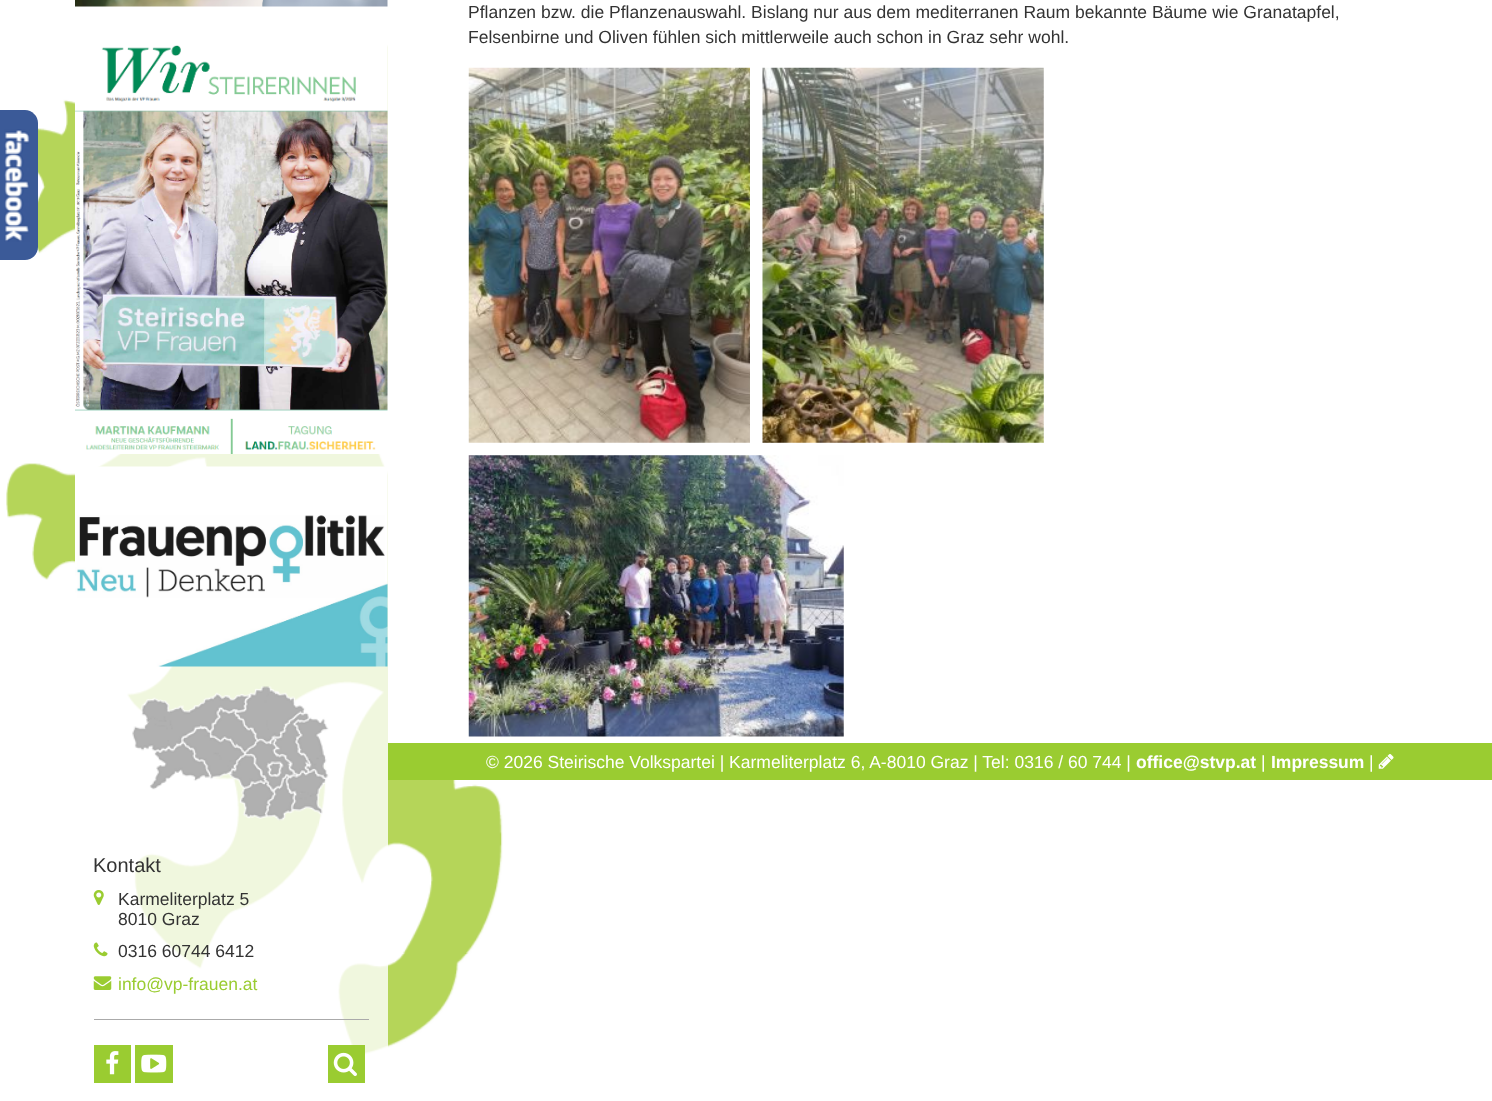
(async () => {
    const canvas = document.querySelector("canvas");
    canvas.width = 1492;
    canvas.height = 1101;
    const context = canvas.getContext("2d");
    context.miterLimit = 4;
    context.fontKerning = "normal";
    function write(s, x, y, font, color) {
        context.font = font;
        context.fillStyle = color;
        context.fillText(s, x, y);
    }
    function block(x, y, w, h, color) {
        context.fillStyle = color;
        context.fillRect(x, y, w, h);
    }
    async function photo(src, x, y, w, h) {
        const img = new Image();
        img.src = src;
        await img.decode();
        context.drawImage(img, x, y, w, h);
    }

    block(0, 0, 1492, 1101, "rgb(255, 255, 255)");
    await photo("media/15.png", 0, 36, 694, 1020);
    block(388, 36, 306, 707, "rgb(255, 255, 255)");
    write("Pflanzen bzw. die Pflanzenauswahl. Bislang nur aus dem mediterranen Raum bekannte Bäume wie Granatapfel,", 468, 18, "17.5px Liberation Sans", "rgb(51, 51, 51)");
    write("Felsenbirne und Oliven fühlen sich mittlerweile auch schon in Graz sehr wohl.", 468, 43, "17.5px Liberation Sans", "rgb(51, 51, 51)");
    await photo("media/1.png", 468, 67, 282, 376);
    await photo("media/2.png", 762, 67, 282, 376);
    await photo("media/3.png", 468, 455, 376, 282);
    block(388, 743, 1104, 37, "rgb(154, 204, 49)");
    write("© 2026 Steirische Volkspartei | Karmeliterplatz 6, A-8010 Graz | Tel: 0316 / 60 744 |", 486, 768, "17.5px Liberation Sans", "rgb(255, 255, 255)");
    write("office@stvp.at", 1136, 768, "bold 17.5px Liberation Sans", "rgb(255, 255, 255)");
    write("|", 1261, 768, "17.5px Liberation Sans", "rgb(255, 255, 255)");
    write("Impressum", 1271, 768, "bold 17.5px Liberation Sans", "rgb(255, 255, 255)");
    write("|", 1369, 768, "17.5px Liberation Sans", "rgb(255, 255, 255)");
    await photo("media/4.png", 1378, 754, 16, 15);
    block(75, 44, 313, 1012, "rgba(255, 255, 255, 0.8)");
    await photo("media/5.png", 75, 0, 313, 7);
    await photo("media/6.png", 75, 45, 313, 409);
    await photo("media/7.png", 75, 466, 313, 201);
    await photo("media/8.png", 132, 686, 197, 135);
    write("Kontakt", 93, 872, "20px Liberation Sans", "rgb(51, 51, 51)");
    await photo("media/9.png", 93, 890, 11, 15);
    write("Karmeliterplatz 5", 118, 905, "17.5px Liberation Sans", "rgb(51, 51, 51)");
    write("8010 Graz", 118, 925, "17.5px Liberation Sans", "rgb(51, 51, 51)");
    await photo("media/10.png", 93, 942, 15, 15);
    write("0316 60744 6412", 118, 957, "17.5px Liberation Sans", "rgb(51, 51, 51)");
    await photo("media/11.png", 93, 976, 19, 14);
    write("info@vp-frauen.at", 118, 990, "17.5px Liberation Sans", "rgb(154, 204, 49)");
    block(94, 1019, 275, 1, "rgb(170, 170, 170)");
    block(94, 1045, 37, 38, "rgb(154, 204, 49)");
    await photo("media/12.png", 106, 1051, 13, 24);
    block(135, 1045, 38, 38, "rgb(154, 204, 49)");
    await photo("media/13.png", 141, 1054, 26, 19);
    block(328, 1045, 37, 38, "rgb(154, 204, 49)");
    await photo("media/14.png", 333, 1052, 24, 25);
    context.fillStyle = "rgb(59, 90, 152)";
    context.beginPath();
    context.moveTo(-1, 110);
    context.lineTo(25, 110);
    context.bezierCurveTo(32, 110, 38, 116, 38, 123);
    context.lineTo(38, 247);
    context.bezierCurveTo(38, 254, 32, 260, 25, 260);
    context.lineTo(-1, 260);
    context.closePath();
    context.fill();
    await photo("media/16.png", 4, 129, 26, 113);
})();
